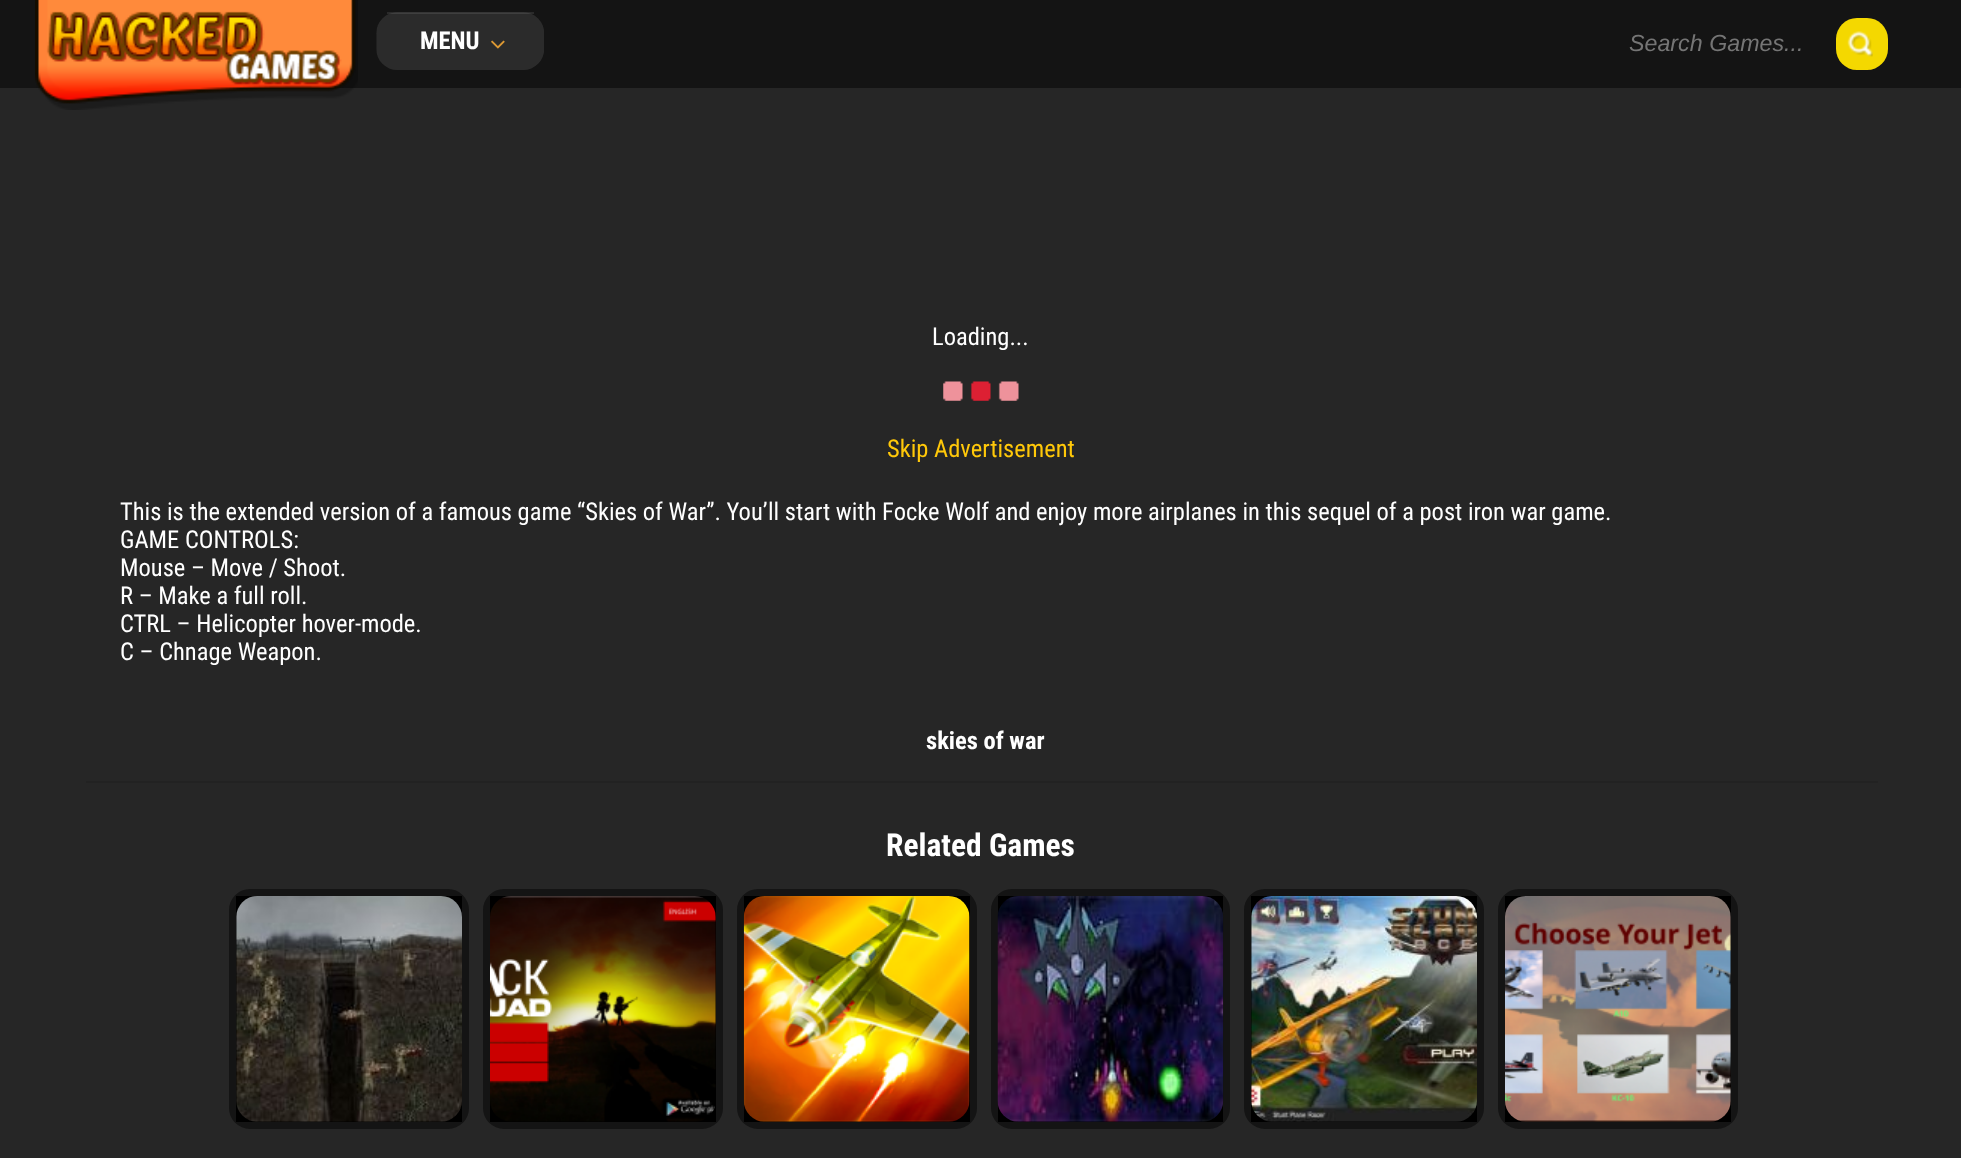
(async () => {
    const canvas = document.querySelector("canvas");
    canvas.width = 1961;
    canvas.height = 1158;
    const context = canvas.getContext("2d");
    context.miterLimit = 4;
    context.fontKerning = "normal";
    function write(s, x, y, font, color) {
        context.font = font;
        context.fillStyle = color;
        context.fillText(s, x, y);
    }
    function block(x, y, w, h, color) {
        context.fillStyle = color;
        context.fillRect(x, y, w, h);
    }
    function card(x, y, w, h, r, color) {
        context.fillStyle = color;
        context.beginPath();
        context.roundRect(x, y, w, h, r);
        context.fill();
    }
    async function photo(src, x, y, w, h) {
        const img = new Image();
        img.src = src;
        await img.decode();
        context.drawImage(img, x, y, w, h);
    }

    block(0, 0, 1961, 1158, "rgb(38, 38, 38)");
    block(0, 0, 1961, 88, "rgb(20, 20, 20)");
    await photo("media/1.png", 35, 0, 323, 110);
    await photo("media/2.png", 376, 12, 168, 58);
    block(387, 12, 147, 2, "rgba(250, 250, 250, 0.1)");
    write("MENU", 420, 49, "bold 24.5px Roboto Condensed", "rgb(255, 255, 255)");
    await photo("media/3.png", 491, 40, 14, 9);
    write("Search Games...", 1629, 51, "italic 23.25px Liberation Sans", "rgb(117, 117, 117)");
    card(1836, 18, 52, 52, 21, "rgb(244, 216, 0)");
    await photo("media/4.png", 1847, 31, 26, 26);
    write("Loading...", 932, 345, "24.5px Roboto Condensed", "rgb(255, 255, 255)");
    await photo("media/5.png", 943, 381, 76, 20);
    write("Skip Advertisement", 887, 457, "24.5px Roboto Condensed", "rgb(255, 200, 9)");
    write("This is the extended version of a famous game “Skies of War”. You’ll start with Focke Wolf and enjoy more airplanes in this sequel of a post iron war game.", 120, 520, "24.5px Roboto Condensed", "rgb(255, 255, 255)");
    write("GAME CONTROLS:", 120, 548, "24.5px Roboto Condensed", "rgb(255, 255, 255)");
    write("Mouse – Move / Shoot.", 120, 576, "24.5px Roboto Condensed", "rgb(255, 255, 255)");
    write("R – Make a full roll.", 120, 604, "24.5px Roboto Condensed", "rgb(255, 255, 255)");
    write("CTRL – Helicopter hover-mode.", 120, 632, "24.5px Roboto Condensed", "rgb(255, 255, 255)");
    write("C – Chnage Weapon.", 120, 660, "24.5px Roboto Condensed", "rgb(255, 255, 255)");
    block(86, 781, 1792, 2, "rgb(34, 34, 34)");
    write("skies of war", 926, 749, "bold 24.5px Roboto Condensed", "rgb(255, 255, 255)");
    write("Related Games", 886, 856, "bold 31.5px Roboto Condensed", "rgb(255, 255, 255)");
    context.beginPath();
    context.roundRect(232.5, 892.5, 233, 233, 17.5);
    context.strokeStyle = "rgb(20, 20, 20)";
    context.lineWidth = 7;
    context.stroke();
    block(236, 896, 226, 226, "rgb(0, 0, 0)");
    await photo("media/6.png", 236, 896, 226, 226);
    context.beginPath();
    context.roundRect(486.5, 892.5, 233, 233, 17.5);
    context.stroke();
    block(490, 896, 226, 226, "rgb(0, 0, 0)");
    await photo("media/7.png", 490, 896, 226, 226);
    context.beginPath();
    context.roundRect(740.5, 892.5, 233, 233, 17.5);
    context.stroke();
    block(744, 896, 226, 226, "rgb(0, 0, 0)");
    await photo("media/8.png", 743, 896, 227, 226);
    context.beginPath();
    context.roundRect(994.5, 892.5, 232, 233, 17.5);
    context.stroke();
    block(998, 896, 225, 226, "rgb(0, 0, 0)");
    await photo("media/9.png", 997, 896, 227, 226);
    context.beginPath();
    context.roundRect(1247.5, 892.5, 233, 233, 17.5);
    context.stroke();
    block(1251, 896, 226, 226, "rgb(0, 0, 0)");
    await photo("media/10.png", 1251, 896, 226, 226);
    context.beginPath();
    context.roundRect(1501.5, 892.5, 233, 233, 17.5);
    context.stroke();
    block(1505, 896, 226, 226, "rgb(0, 0, 0)");
    await photo("media/11.png", 1505, 896, 226, 226);
})();
